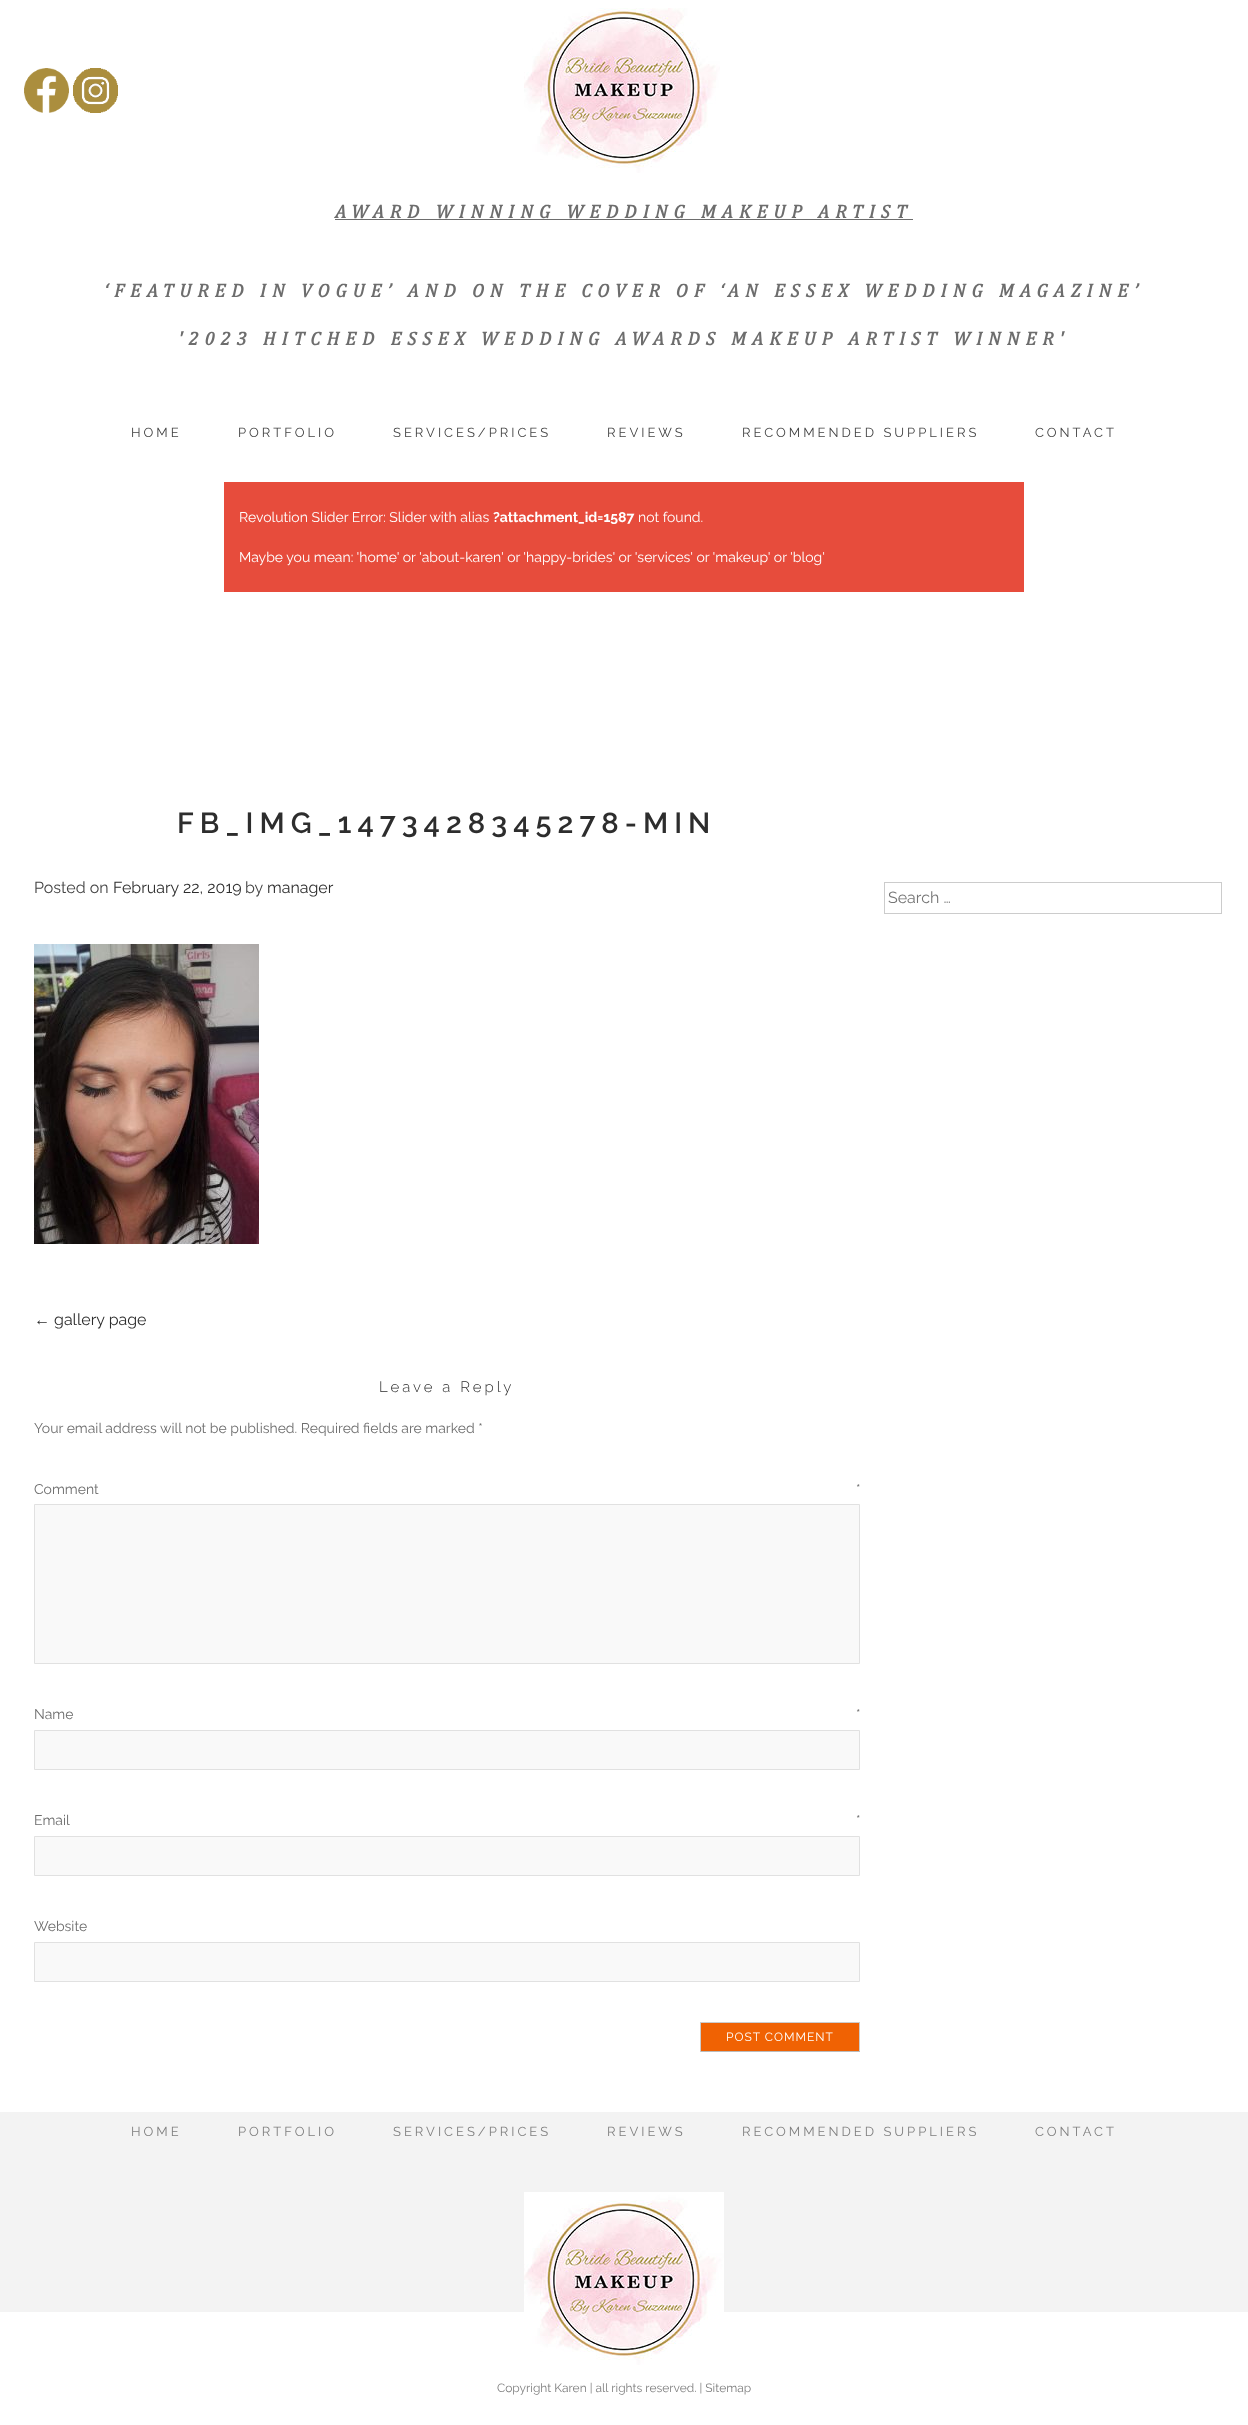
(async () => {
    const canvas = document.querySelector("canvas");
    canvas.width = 1248;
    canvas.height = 2425;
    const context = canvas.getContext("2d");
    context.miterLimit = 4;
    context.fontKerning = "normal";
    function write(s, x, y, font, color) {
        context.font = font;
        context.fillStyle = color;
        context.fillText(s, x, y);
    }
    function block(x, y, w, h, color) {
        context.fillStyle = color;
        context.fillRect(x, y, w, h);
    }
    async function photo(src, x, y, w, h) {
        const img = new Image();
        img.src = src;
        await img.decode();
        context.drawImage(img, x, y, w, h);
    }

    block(0, 0, 1248, 2425, "rgb(255, 255, 255)");
    await photo("media/1.png", 24, 68, 45, 45);
    await photo("media/2.png", 73, 68, 45, 45);
    await photo("media/3.png", 524, 8, 196, 165);
    context.letterSpacing = "6px";
    write("AWARD WINNING WEDDING MAKEUP ARTIST", 335, 218, "italic bold 19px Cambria", "rgb(109, 109, 109)");
    block(335, 219, 578, 1, "rgb(109, 109, 109)");
    write("‘FEATURED IN VOGUE’ AND ON THE COVER OF ‘AN ESSEX WEDDING MAGAZINE’", 104, 297, "italic bold 19px Cambria", "rgb(109, 109, 109)");
    write("'2023 HITCHED ESSEX WEDDING AWARDS MAKEUP ARTIST WINNER'", 178, 345, "italic bold 19px Cambria", "rgb(109, 109, 109)");
    context.letterSpacing = "3px";
    write("HOME", 131, 437, "13px Raleway", "rgb(67, 67, 67)");
    write("PORTFOLIO", 238, 437, "13px Raleway", "rgb(67, 67, 67)");
    write("SERVICES/PRICES", 393, 437, "13px Raleway", "rgb(67, 67, 67)");
    write("REVIEWS", 607, 437, "13px Raleway", "rgb(67, 67, 67)");
    write("RECOMMENDED SUPPLIERS", 742, 437, "13px Raleway", "rgb(67, 67, 67)");
    write("CONTACT", 1035, 437, "13px Raleway", "rgb(67, 67, 67)");
    block(224, 482, 800, 110, "rgb(231, 76, 60)");
    context.letterSpacing = "0px";
    write("Revolution Slider Error: Slider with alias", 239, 522, "14px Raleway", "rgb(255, 255, 255)");
    write("?attachment_id=1587", 493, 522, "bold 14px Raleway", "rgb(255, 255, 255)");
    write("not found.", 638, 522, "14px Raleway", "rgb(255, 255, 255)");
    write("Maybe you mean: 'home' or 'about-karen' or 'happy-brides' or 'services' or 'makeup' or 'blog'", 239, 562, "14px Raleway", "rgb(255, 255, 255)");
    context.letterSpacing = "6px";
    write("FB_IMG_1473428345278-MIN", 177, 833, "600 29px Raleway", "rgb(45, 45, 45)");
    context.letterSpacing = "0px";
    write("Posted on", 34, 893, "16px Raleway", "rgb(67, 67, 67)");
    write("February 22, 2019", 113, 893, "16px Raleway", "rgb(45, 45, 45)");
    write("by", 245, 893, "16px Raleway", "rgb(67, 67, 67)");
    write("manager", 267, 893, "16px Raleway", "rgb(45, 45, 45)");
    await photo("media/4.png", 34, 944, 225, 300);
    write("←", 34, 1325, "16px Liberation Sans", "rgb(45, 45, 45)");
    write("gallery page", 54, 1325, "16px Raleway", "rgb(45, 45, 45)");
    context.letterSpacing = "3px";
    write("Leave a Reply", 379, 1392, "300 15px Raleway", "rgb(45, 45, 45)");
    context.letterSpacing = "0px";
    write("Your email address will not be published. Required fields are marked *", 34, 1433, "14px Raleway", "rgb(109, 109, 109)");
    write("Comment", 34, 1494, "14px Raleway", "rgb(109, 109, 109)");
    write("*", 856, 1494, "14px Raleway", "rgb(109, 109, 109)");
    context.fillStyle = "rgb(249, 249, 249)";
    context.beginPath();
    context.rect(34.5, 1504.5, 825, 159);
    context.fill();
    context.strokeStyle = "rgb(225, 225, 225)";
    context.stroke();
    write("Name", 34, 1719, "14px Raleway", "rgb(109, 109, 109)");
    write("*", 856, 1719, "14px Raleway", "rgb(109, 109, 109)");
    context.fillStyle = "rgb(249, 249, 249)";
    context.beginPath();
    context.rect(34.5, 1730.5, 825, 39);
    context.fill();
    context.stroke();
    write("Email", 34, 1825, "14px Raleway", "rgb(109, 109, 109)");
    write("*", 856, 1825, "14px Raleway", "rgb(109, 109, 109)");
    context.fillStyle = "rgb(249, 249, 249)";
    context.beginPath();
    context.rect(34.5, 1836.5, 825, 39);
    context.fill();
    context.stroke();
    write("Website", 34, 1931, "14px Raleway", "rgb(109, 109, 109)");
    context.fillStyle = "rgb(249, 249, 249)";
    context.beginPath();
    context.rect(34.5, 1942.5, 825, 39);
    context.fill();
    context.stroke();
    block(701, 2023, 158, 28, "rgb(240, 98, 3)");
    block(700, 2022, 160, 1, "rgb(204, 204, 204)");
    block(859, 2022, 1, 30, "rgb(204, 204, 204)");
    block(700, 2051, 160, 1, "rgb(187, 187, 187)");
    block(700, 2022, 1, 30, "rgb(204, 204, 204)");
    context.letterSpacing = "1px";
    write("POST COMMENT", 726, 2041, "12px Raleway", "rgb(255, 255, 255)");
    context.strokeStyle = "rgb(204, 204, 204)";
    context.strokeRect(884.5, 882.5, 337, 31);
    context.letterSpacing = "0px";
    write("Search …", 888, 903, "16px Raleway", "rgb(117, 117, 117)");
    block(0, 2112, 1248, 200, "rgb(243, 243, 243)");
    context.letterSpacing = "3px";
    write("HOME", 131, 2136, "13px Raleway", "rgb(127, 127, 127)");
    write("PORTFOLIO", 238, 2136, "13px Raleway", "rgb(127, 127, 127)");
    write("SERVICES/PRICES", 393, 2136, "13px Raleway", "rgb(127, 127, 127)");
    write("REVIEWS", 607, 2136, "13px Raleway", "rgb(127, 127, 127)");
    write("RECOMMENDED SUPPLIERS", 742, 2136, "13px Raleway", "rgb(127, 127, 127)");
    write("CONTACT", 1035, 2136, "13px Raleway", "rgb(127, 127, 127)");
    await photo("media/5.png", 524, 2192, 200, 173);
    context.letterSpacing = "0px";
    write("Copyright Karen | all rights reserved. | Sitemap", 497, 2392, "12px Raleway", "rgb(127, 127, 127)");
})();
